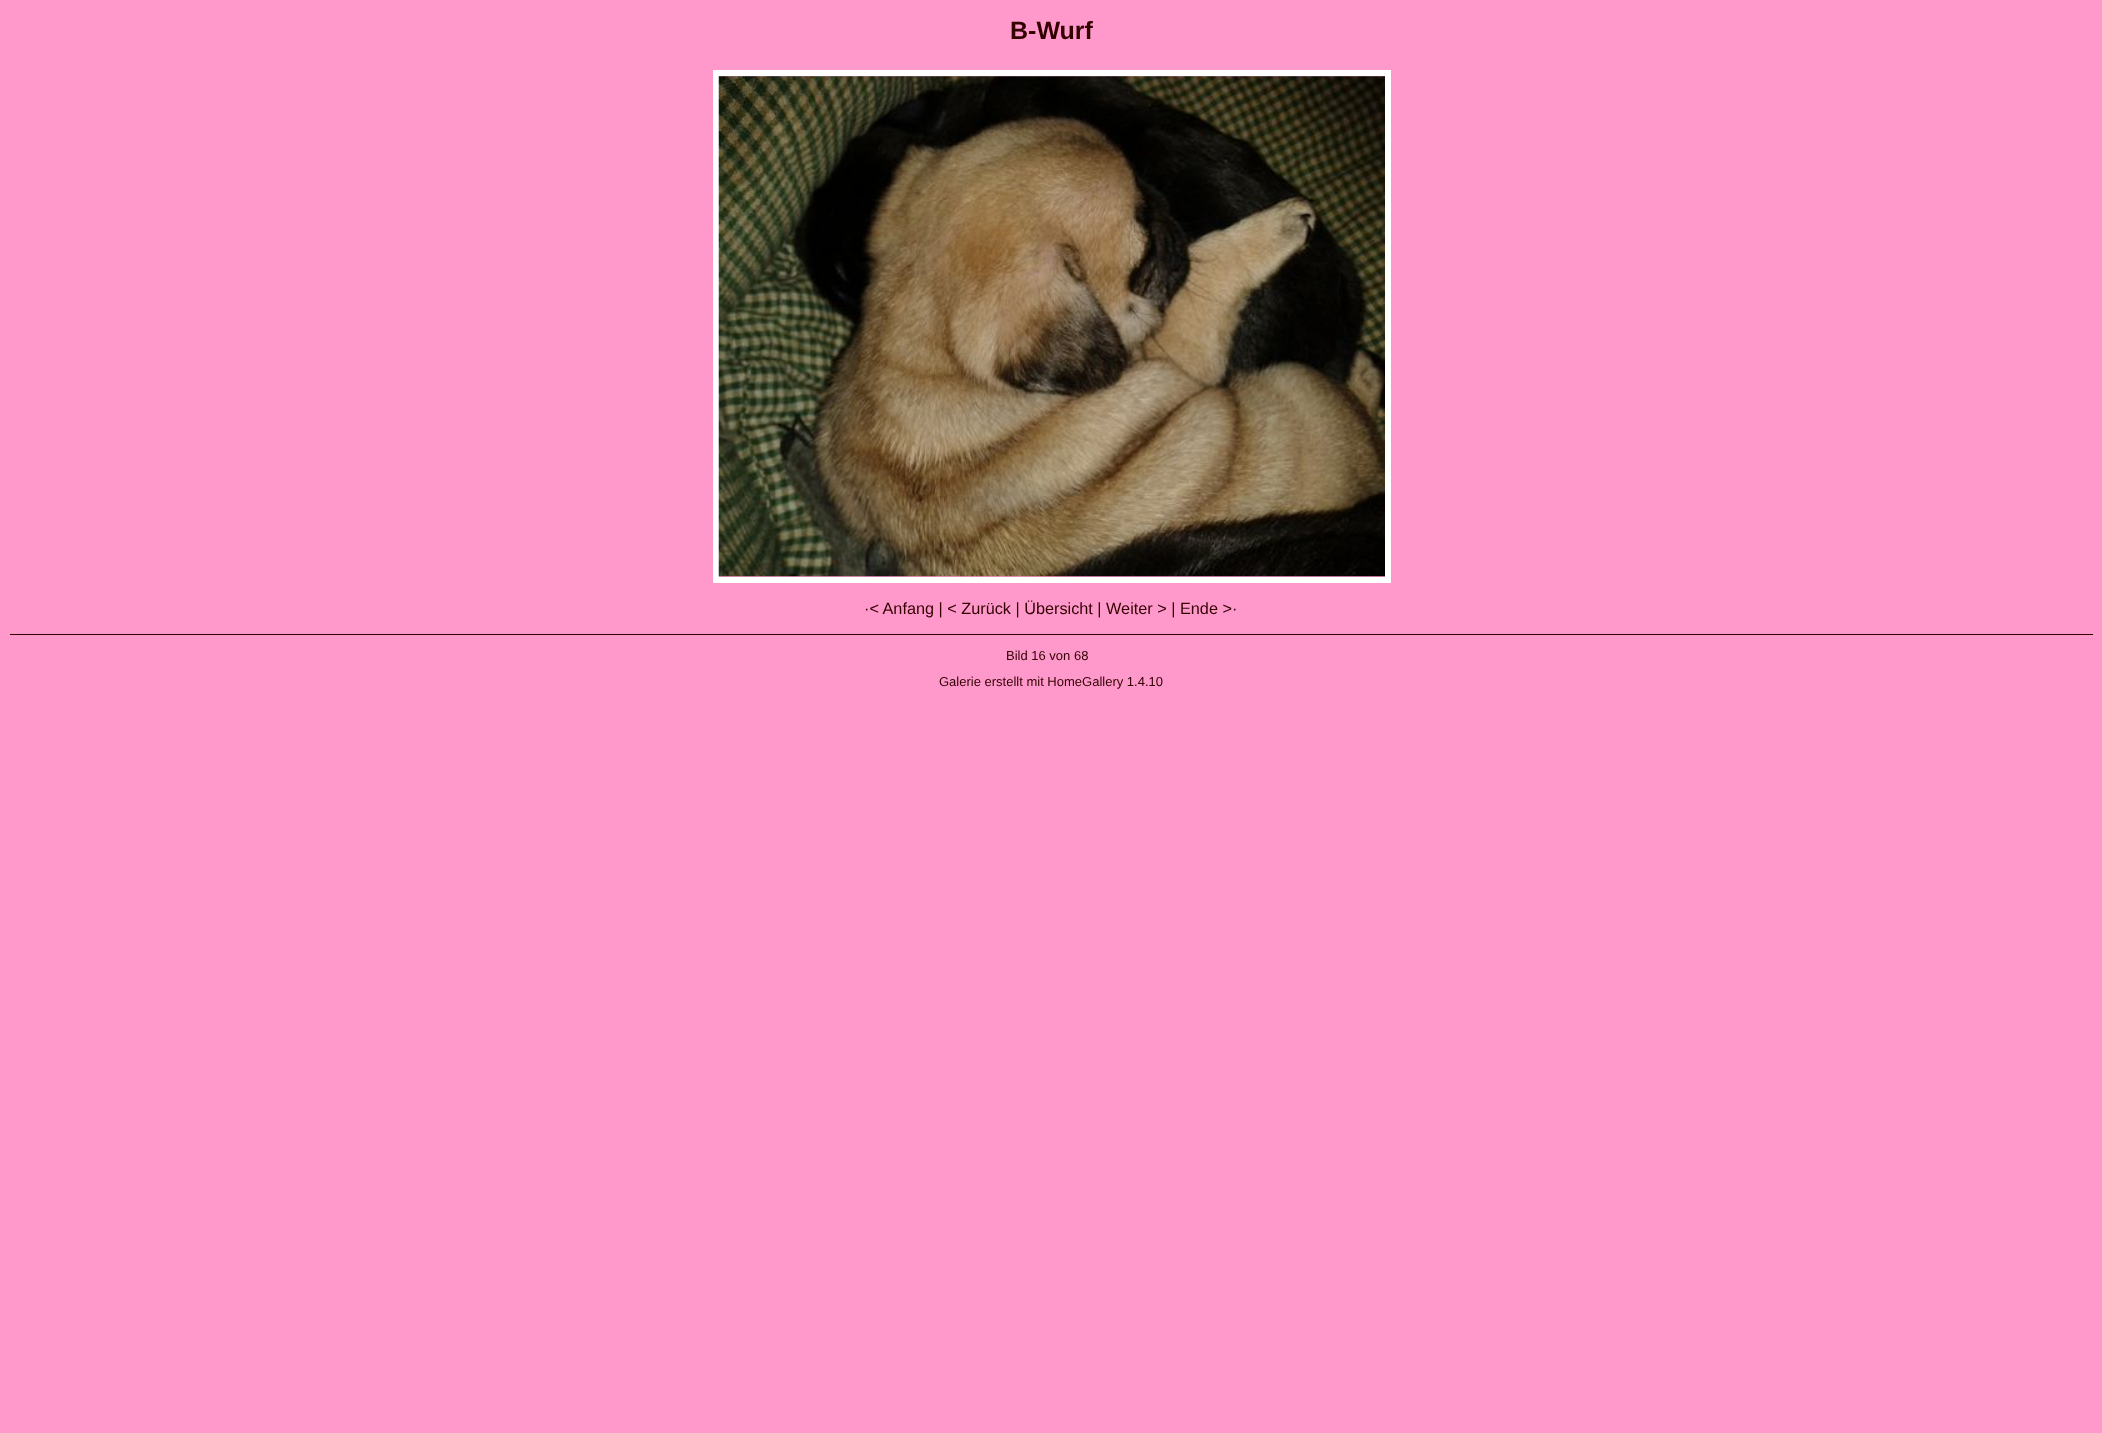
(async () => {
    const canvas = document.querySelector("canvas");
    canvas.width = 2102;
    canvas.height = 1433;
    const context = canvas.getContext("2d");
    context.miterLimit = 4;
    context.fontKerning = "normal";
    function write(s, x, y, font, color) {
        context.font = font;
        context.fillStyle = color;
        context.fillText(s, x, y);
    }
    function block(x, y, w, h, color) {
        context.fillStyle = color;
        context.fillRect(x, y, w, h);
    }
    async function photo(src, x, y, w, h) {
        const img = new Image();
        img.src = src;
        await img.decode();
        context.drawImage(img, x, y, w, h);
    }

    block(0, 0, 2102, 1433, "rgb(255, 153, 204)");
    write("B-Wurf", 1010, 39, "bold 25px Liberation Sans", "rgb(51, 0, 0)");
    context.strokeStyle = "rgb(255, 255, 255)";
    context.lineWidth = 6;
    context.strokeRect(716, 73, 672, 507);
    await photo("media/1.png", 718, 76, 667, 501);
    write("·< Anfang | < Zurück | Übersicht | Weiter > | Ende >·", 864, 614, "16.25px Liberation Sans", "rgb(51, 0, 0)");
    block(10, 634, 2083, 1, "rgb(51, 0, 0)");
    write("Bild 16 von 68", 1006, 660, "13px Liberation Sans", "rgb(51, 0, 0)");
    write("Galerie erstellt mit HomeGallery 1.4.10", 939, 686, "13px Liberation Sans", "rgb(51, 0, 0)");
})();
